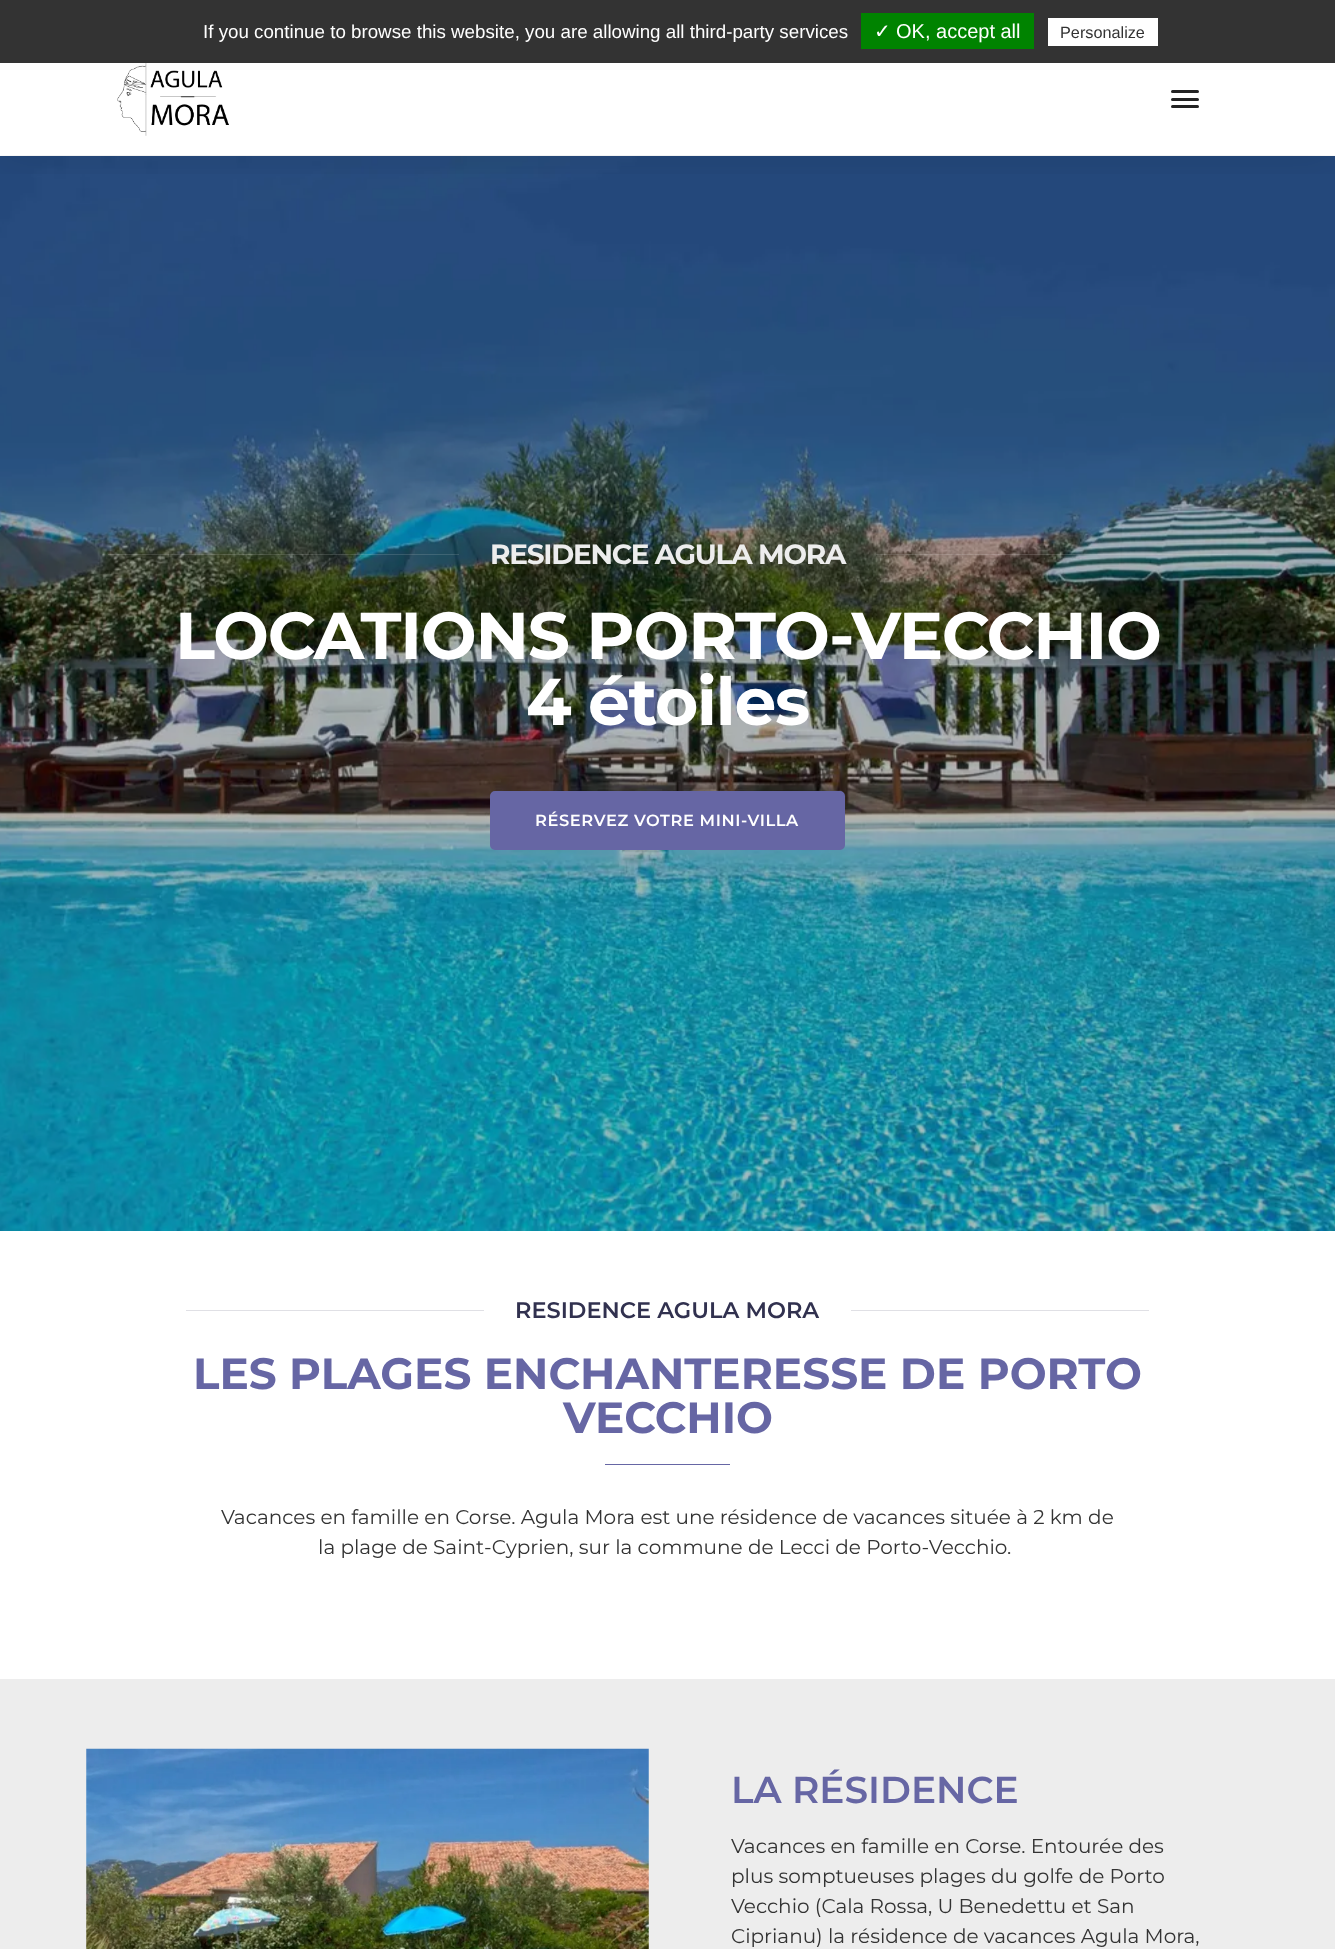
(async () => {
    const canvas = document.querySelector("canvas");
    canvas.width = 1335;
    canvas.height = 1949;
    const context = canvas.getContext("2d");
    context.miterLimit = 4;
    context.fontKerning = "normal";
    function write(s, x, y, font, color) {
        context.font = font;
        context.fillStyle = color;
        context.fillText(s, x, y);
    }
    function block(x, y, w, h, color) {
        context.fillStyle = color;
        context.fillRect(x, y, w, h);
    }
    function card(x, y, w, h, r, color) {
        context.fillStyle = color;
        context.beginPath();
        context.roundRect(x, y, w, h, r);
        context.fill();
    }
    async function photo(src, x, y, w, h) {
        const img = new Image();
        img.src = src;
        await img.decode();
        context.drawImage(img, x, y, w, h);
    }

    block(0, 0, 1335, 1949, "rgb(255, 255, 255)");
    await photo("media/2.png", 0, 156, 1335, 1075);
    context.save();
    context.beginPath();
    context.rect(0, 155, 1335, 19);
    context.clip();
    context.fillStyle = "rgba(0, 0, 0, 0.1)";
    context.filter = "blur(22px)";
    context.beginPath();
    context.rect(0, 43, 1335, 112);
    context.fill();
    context.filter = "none";
    context.restore();
    await photo("media/1.png", 117, 63, 112, 73);
    card(1171, 90, 28, 3, 1.5, "rgb(35, 35, 35)");
    card(1171, 98, 28, 3, 1.5, "rgb(35, 35, 35)");
    card(1171, 105, 28, 3, 1.5, "rgb(35, 35, 35)");
    block(0, 0, 1335, 63, "rgb(51, 51, 51)");
    write("If you continue to browse this website, you are allowing all third-party services", 203, 38, "18.75px Liberation Sans", "rgb(255, 255, 255)");
    block(861, 13, 173, 36, "rgb(0, 131, 0)");
    write("✓", 874, 38, "20px DejaVu Sans", "rgb(255, 255, 255)");
    write("OK, accept all", 896, 38, "20px Liberation Sans", "rgb(255, 255, 255)");
    block(1048, 18, 110, 28, "rgb(255, 255, 255)");
    write("Personalize", 1060, 38, "16.25px Liberation Sans", "rgb(51, 51, 51)");
    block(108, 554, 351, 1, "rgba(237, 237, 237, 0.15)");
    context.letterSpacing = "-1.25px";
    write("RESIDENCE AGULA MORA", 490, 564, "bold 27.9px Montserrat", "rgb(237, 237, 237)");
    block(876, 554, 352, 1, "rgba(237, 237, 237, 0.15)");
    write("LOCATIONS PORTO-VECCHIO", 175, 659, "bold 66.25px Montserrat", "rgb(255, 255, 255)");
    write("4 étoiles", 526, 725, "bold 66.25px Montserrat", "rgb(255, 255, 255)");
    context.fillStyle = "rgb(102, 102, 164)";
    context.beginPath();
    context.roundRect(491.5, 792.5, 352, 56, 3.5);
    context.fill();
    context.strokeStyle = "rgb(102, 102, 164)";
    context.lineWidth = 3;
    context.stroke();
    context.letterSpacing = "0.6px";
    write("RÉSERVEZ VOTRE MINI-VILLA", 535, 826, "600 16.25px Montserrat", "rgb(255, 255, 255)");
    block(186, 1310, 298, 1, "rgb(224, 224, 229)");
    context.letterSpacing = "0px";
    write("RESIDENCE AGULA MORA", 515, 1318, "600 22.5px Montserrat", "rgb(49, 49, 79)");
    block(851, 1310, 298, 1, "rgb(224, 224, 229)");
    write("LES PLAGES ENCHANTERESSE DE PORTO", 193, 1389, "bold 43.75px Montserrat", "rgb(102, 102, 164)");
    write("VECCHIO", 563, 1433, "bold 43.75px Montserrat", "rgb(102, 102, 164)");
    block(605, 1464, 125, 1, "rgb(102, 102, 164)");
    write("Vacances en famille en Corse. Agula Mora est une résidence de vacances située à 2 km de", 221, 1524, "20px Montserrat", "rgb(51, 51, 51)");
    write("la plage de Saint-Cyprien, sur la commune de Lecci de Porto-Vecchio.", 318, 1554, "20px Montserrat", "rgb(51, 51, 51)");
    block(0, 1679, 1335, 270, "rgb(237, 237, 237)");
    await photo("media/3.png", 86, 1748, 563, 201);
    write("LA RÉSIDENCE", 731, 1803, "600 37.5px Montserrat", "rgb(102, 102, 164)");
    write("Vacances en famille en Corse. Entourée des", 731, 1853, "20px Montserrat", "rgb(51, 51, 51)");
    write("plus somptueuses plages du golfe de Porto", 731, 1883, "20px Montserrat", "rgb(51, 51, 51)");
    write("Vecchio (Cala Rossa, U Benedettu et San", 731, 1913, "20px Montserrat", "rgb(51, 51, 51)");
    write("Ciprianu) la résidence de vacances Agula Mora,", 731, 1943, "20px Montserrat", "rgb(51, 51, 51)");
})();
